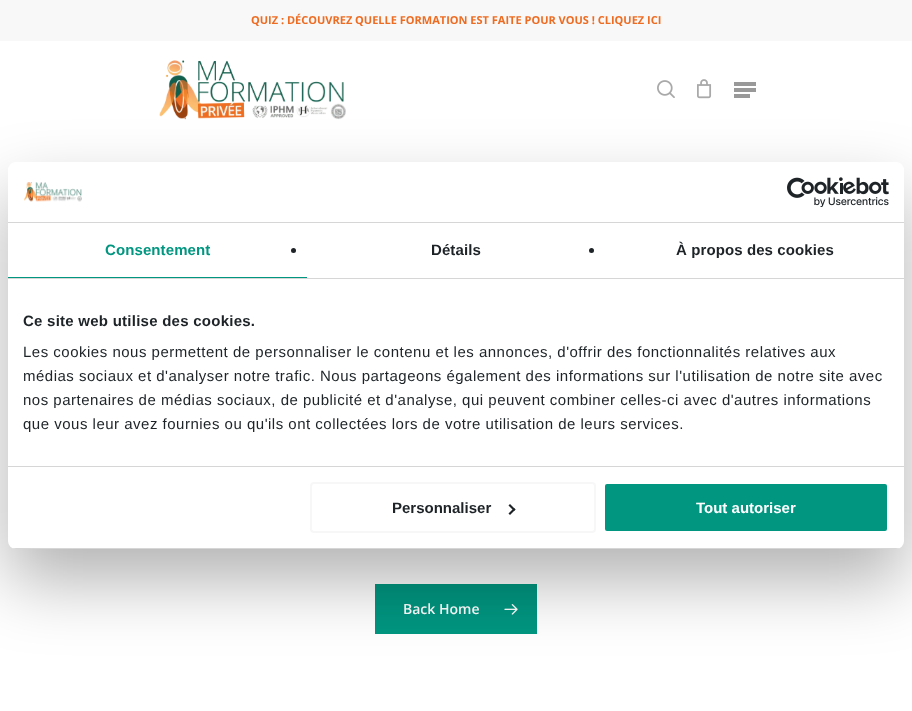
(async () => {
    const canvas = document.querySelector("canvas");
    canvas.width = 912;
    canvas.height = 711;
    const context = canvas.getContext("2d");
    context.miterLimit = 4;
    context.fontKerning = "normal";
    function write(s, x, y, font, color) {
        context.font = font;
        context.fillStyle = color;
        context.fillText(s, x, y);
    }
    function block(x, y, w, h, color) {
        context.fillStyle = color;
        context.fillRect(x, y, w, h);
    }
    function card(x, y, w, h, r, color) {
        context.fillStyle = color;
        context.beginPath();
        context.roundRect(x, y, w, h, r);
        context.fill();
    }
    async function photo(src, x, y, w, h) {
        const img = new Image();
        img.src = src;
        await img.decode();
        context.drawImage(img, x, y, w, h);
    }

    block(0, 0, 912, 711, "rgb(255, 255, 255)");
    block(0, 0, 912, 41, "rgb(248, 248, 248)");
    write("QUIZ : DÉCOUVREZ QUELLE FORMATION EST FAITE POUR VOUS ! CLIQUEZ ICI", 251, 24, "bold 11px Open Sans", "rgb(238, 108, 34)");
    await photo("media/1.png", 159, 60, 187, 60);
    await photo("media/2.png", 657, 80, 18, 18);
    await photo("media/3.png", 697, 79, 15, 20);
    block(734, 82, 22, 4, "rgb(153, 153, 153)");
    block(734, 94, 16, 4, "rgb(153, 153, 153)");
    block(734, 88, 22, 4, "rgb(153, 153, 153)");
    block(375, 584, 162, 50, "rgb(1, 150, 128)");
    write("Back Home", 403, 614, "600 14px Open Sans", "rgb(255, 255, 255)");
    await photo("media/4.png", 504, 604, 14, 11);
    context.fillStyle = "rgba(0, 0, 0, 0.3)";
    context.filter = "blur(34px)";
    context.beginPath();
    context.roundRect(8, 194, 896, 387, 8);
    context.fill();
    context.filter = "none";
    card(8, 162, 896, 387, 8, "rgb(255, 255, 255)");
    block(8, 222, 896, 1, "rgb(214, 214, 214)");
    await photo("media/5.png", 24, 182, 58, 20);
    await photo("media/6.png", 787, 177, 102, 30);
    block(8, 278, 896, 1, "rgb(214, 214, 214)");
    block(8, 277, 299, 1, "rgb(1, 150, 128)");
    context.letterSpacing = "0.1px";
    write("Consentement", 105, 255, "bold 15px Liberation Sans", "rgb(1, 150, 128)");
    context.fillStyle = "rgb(29, 35, 39)";
    context.beginPath();
    context.arc(293.5, 250.5, 2.5, 0, Math.PI * 2);
    context.fill();
    write("Détails", 431, 255, "bold 15px Liberation Sans", "rgb(29, 35, 39)");
    context.beginPath();
    context.arc(591.5, 250.5, 2.5, 0, Math.PI * 2);
    context.fill();
    write("À propos des cookies", 676, 255, "bold 15px Liberation Sans", "rgb(29, 35, 39)");
    block(8, 466, 896, 1, "rgb(214, 214, 214)");
    context.letterSpacing = "0.25px";
    write("Ce site web utilise des cookies.", 23, 326, "bold 15px Liberation Sans", "rgb(29, 35, 39)");
    context.letterSpacing = "0.5px";
    write("Les cookies nous permettent de personnaliser le contenu et les annonces, d'offrir des fonctionnalités relatives aux", 23, 357, "15px Liberation Sans", "rgb(29, 35, 39)");
    write("médias sociaux et d'analyser notre trafic. Nous partageons également des informations sur l'utilisation de notre site avec", 23, 381, "15px Liberation Sans", "rgb(29, 35, 39)");
    write("nos partenaires de médias sociaux, de publicité et d'analyse, qui peuvent combiner celles-ci avec d'autres informations", 23, 405, "15px Liberation Sans", "rgb(29, 35, 39)");
    write("que vous leur avez fournies ou qu'ils ont collectées lors de votre utilisation de leurs services.", 23, 429, "15px Liberation Sans", "rgb(29, 35, 39)");
    context.save();
    context.beginPath();
    context.roundRect(8, 162, 896, 387, 8);
    context.clip();
    block(8, 548, 896, 1, "rgb(214, 214, 214)");
    context.restore();
    context.beginPath();
    context.roundRect(311, 483, 284, 49, 3);
    context.strokeStyle = "rgb(247, 247, 247)";
    context.lineWidth = 2;
    context.stroke();
    context.letterSpacing = "0px";
    write("Personnaliser", 392, 513, "bold 15px Liberation Sans", "rgb(29, 35, 39)");
    context.beginPath();
    context.moveTo(510, 504);
    context.lineTo(515.5, 509.5);
    context.lineTo(514, 511);
    context.lineTo(508.5, 505.5);
    context.closePath();
    context.fill();
    context.beginPath();
    context.moveTo(514, 508);
    context.lineTo(515.5, 509.5);
    context.lineTo(510, 515);
    context.lineTo(508.5, 513.5);
    context.closePath();
    context.fill();
    context.fillStyle = "rgb(1, 150, 128)";
    context.beginPath();
    context.roundRect(604, 483, 284, 49, 3);
    context.fill();
    context.strokeStyle = "rgb(255, 255, 255)";
    context.stroke();
    write("Tout autoriser", 696, 513, "bold 15px Liberation Sans", "rgb(255, 255, 255)");
})();
